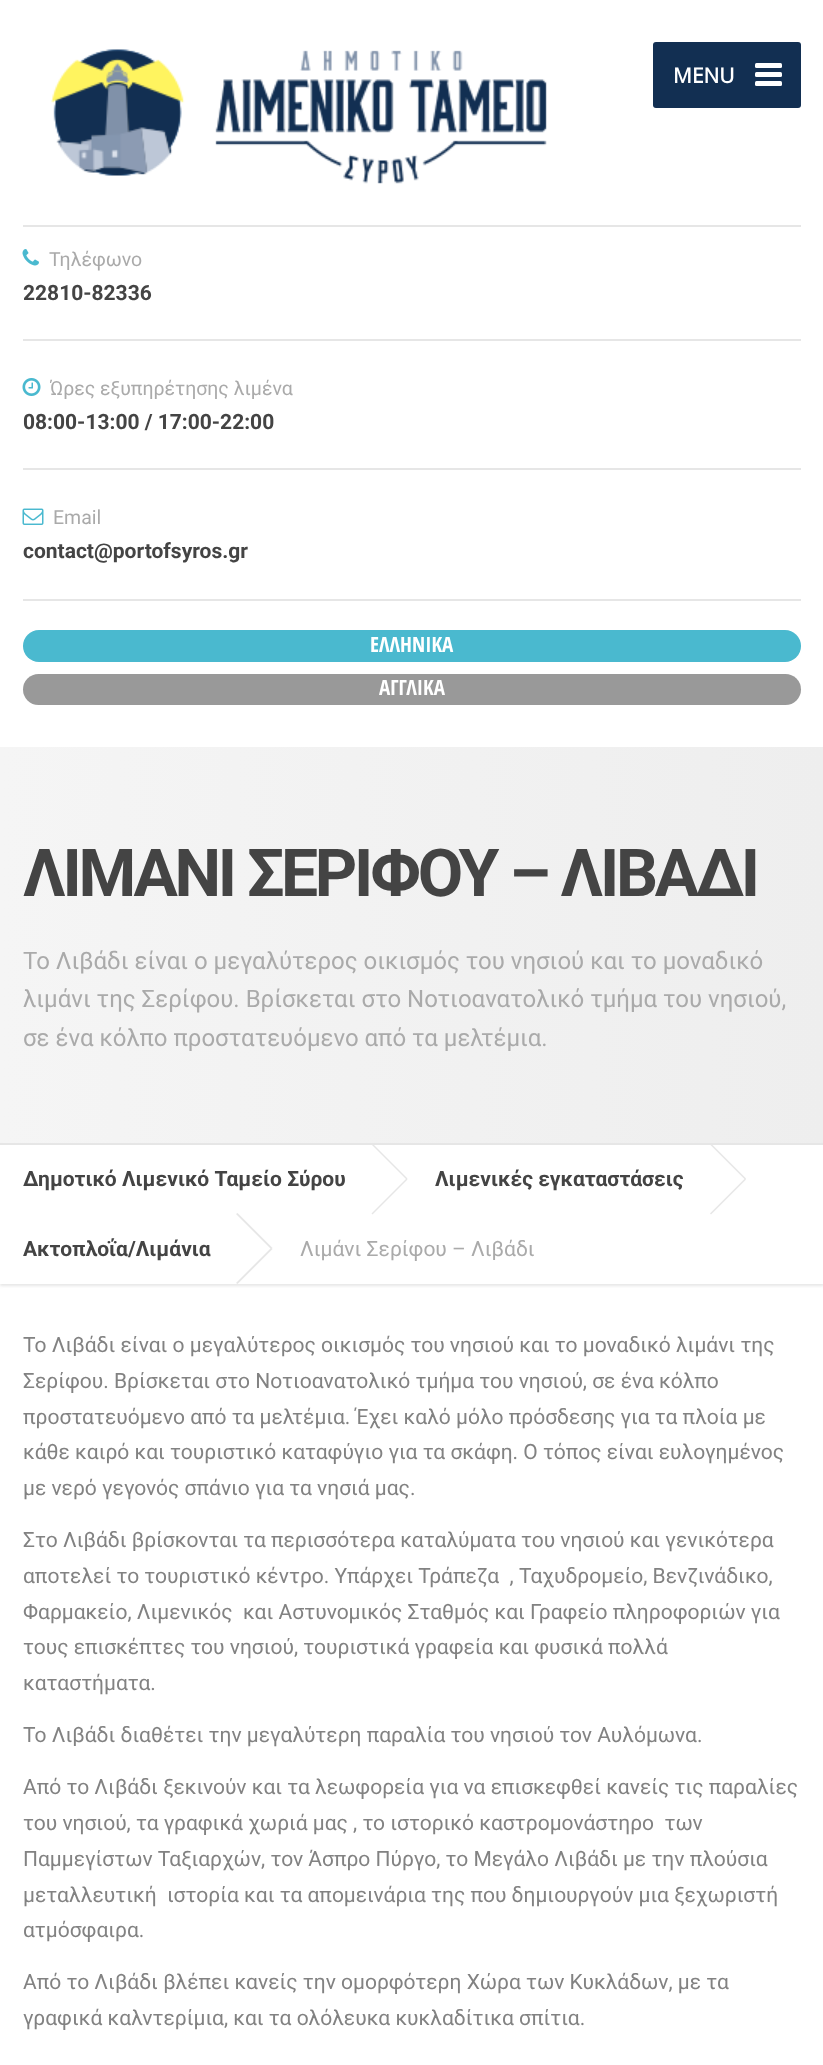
(async () => {
    const canvas = document.querySelector("canvas");
    canvas.width = 823;
    canvas.height = 2065;
    const context = canvas.getContext("2d");
    context.miterLimit = 4;
    context.fontKerning = "normal";
    function write(s, x, y, font, color) {
        context.font = font;
        context.fillStyle = color;
        context.fillText(s, x, y);
    }
    function block(x, y, w, h, color) {
        context.fillStyle = color;
        context.fillRect(x, y, w, h);
    }
    function card(x, y, w, h, r, color) {
        context.fillStyle = color;
        context.beginPath();
        context.roundRect(x, y, w, h, r);
        context.fill();
    }
    async function photo(src, x, y, w, h) {
        const img = new Image();
        img.src = src;
        await img.decode();
        context.drawImage(img, x, y, w, h);
    }
    let gradient;

    block(0, 0, 823, 2065, "rgb(255, 255, 255)");
    block(23, 225, 778, 2, "rgb(230, 230, 230)");
    await photo("media/1.png", 51, 49, 496, 135);
    card(653, 42, 148, 66, 3, "rgb(18, 47, 82)");
    write("MENU", 673, 83, "bold 21px Open Sans", "rgb(255, 255, 255)");
    card(755, 63, 27, 5, 1.5, "rgb(255, 255, 255)");
    card(755, 72, 27, 5, 1.5, "rgb(255, 255, 255)");
    card(755, 81, 27, 5, 1.5, "rgb(255, 255, 255)");
    block(23, 339, 778, 2, "rgb(230, 230, 230)");
    await photo("media/2.png", 22, 249, 17, 17);
    write("Τηλέφωνο", 49, 266, "19.5px Roboto", "rgb(170, 170, 170)");
    write("22810-82336", 23, 300, "bold 21px Roboto", "rgb(68, 68, 68)");
    block(23, 468, 778, 2, "rgb(230, 230, 230)");
    await photo("media/3.png", 22, 378, 19, 18);
    write("Ώρες εξυπηρέτησης λιμένα", 50, 395, "19.5px Roboto", "rgb(170, 170, 170)");
    write("08:00-13:00 / 17:00-22:00", 23, 429, "bold 21px Roboto", "rgb(68, 68, 68)");
    block(23, 599, 778, 2, "rgb(230, 230, 230)");
    await photo("media/4.png", 22, 508, 22, 17);
    write("Email", 53, 524, "19.5px Roboto", "rgb(170, 170, 170)");
    write("contact@portofsyros.gr", 23, 558, "bold 21px Roboto", "rgb(68, 68, 68)");
    card(23, 630, 778, 32, 16, "rgb(74, 185, 207)");
    write("ΕΛΛΗΝΙΚΑ", 370, 652, "bold 21px Open Sans Condensed", "rgb(255, 255, 255)");
    card(23, 674, 778, 31, 15.5, "rgb(153, 153, 153)");
    write("ΑΓΓΛΙΚΑ", 379, 695, "bold 21px Open Sans Condensed", "rgb(255, 255, 255)");
    gradient = context.createLinearGradient(0, 945, 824, 945);
    gradient.addColorStop(0, "rgb(245, 245, 245)");
    gradient.addColorStop(1, "rgb(238, 238, 238)");
    context.fillStyle = gradient;
    context.fillRect(0, 747, 823, 396);
    context.letterSpacing = "-3.3px";
    write("ΛΙΜΑΝΙ ΣΕΡΙΦΟΥ – ΛΙΒΑΔΙ", 23, 896, "bold 66px Roboto", "rgb(68, 68, 68)");
    context.letterSpacing = "0px";
    write("Το Λιβάδι είναι ο μεγαλύτερος οικισμός του νησιού και το μοναδικό", 23, 969, "24px Roboto", "rgb(170, 170, 170)");
    write("λιμάνι της Σερίφου. Βρίσκεται στο Νοτιοανατολικό τμήμα του νησιού,", 23, 1007, "24px Roboto", "rgb(170, 170, 170)");
    write("σε ένα κόλπο προστατευόμενο από τα μελτέμια.", 23, 1046, "24px Roboto", "rgb(170, 170, 170)");
    context.save();
    context.beginPath();
    context.moveTo(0, 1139);
    context.lineTo(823, 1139);
    context.lineTo(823, 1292);
    context.lineTo(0, 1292);
    context.closePath();
    context.moveTo(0, 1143);
    context.lineTo(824, 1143);
    context.lineTo(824, 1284);
    context.lineTo(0, 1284);
    context.closePath();
    context.clip("evenodd");
    context.fillStyle = "rgb(230, 230, 230)";
    context.filter = "blur(1.5px)";
    context.beginPath();
    context.rect(0, 1145, 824, 141);
    context.fill();
    context.filter = "none";
    context.restore();
    block(0, 1143, 823, 2, "rgb(230, 230, 230)");
    write("Δημοτικό Λιμενικό Ταμείο Σύρου", 23, 1186, "bold 21px Roboto", "rgb(68, 68, 68)");
    context.fillStyle = "rgb(230, 230, 230)";
    context.beginPath();
    context.moveTo(371.5, 1144.5);
    context.lineTo(372.5, 1143.5);
    context.lineTo(407.5, 1178.5);
    context.lineTo(406.5, 1179.5);
    context.closePath();
    context.fill();
    context.beginPath();
    context.moveTo(406.5, 1178.5);
    context.lineTo(407.5, 1179.5);
    context.lineTo(372.5, 1214.5);
    context.lineTo(371.5, 1213.5);
    context.closePath();
    context.fill();
    write("Λιμενικές εγκαταστάσεις", 435, 1186, "bold 21px Roboto", "rgb(68, 68, 68)");
    context.fillStyle = "rgb(230, 230, 230)";
    context.beginPath();
    context.moveTo(710, 1144.5);
    context.lineTo(711, 1143.5);
    context.lineTo(746, 1178.5);
    context.lineTo(745, 1179.5);
    context.closePath();
    context.fill();
    context.beginPath();
    context.moveTo(745, 1178.5);
    context.lineTo(746, 1179.5);
    context.lineTo(711, 1214.5);
    context.lineTo(710, 1213.5);
    context.closePath();
    context.fill();
    write("Ακτοπλοΐα/Λιμάνια", 23, 1256, "bold 21px Roboto", "rgb(68, 68, 68)");
    context.fillStyle = "rgb(230, 230, 230)";
    context.beginPath();
    context.moveTo(236, 1214);
    context.lineTo(237.5, 1213);
    context.lineTo(272.5, 1248);
    context.lineTo(271, 1249);
    context.closePath();
    context.fill();
    context.beginPath();
    context.moveTo(271, 1248);
    context.lineTo(272.5, 1249);
    context.lineTo(237.5, 1284);
    context.lineTo(236, 1283);
    context.closePath();
    context.fill();
    write("Λιμάνι Σερίφου – Λιβάδι", 300, 1256, "21px Roboto", "rgb(170, 170, 170)");
    write("Το Λιβάδι είναι ο μεγαλύτερος οικισμός του νησιού και το μοναδικό λιμάνι της", 23, 1352, "21px Roboto", "rgb(130, 130, 130)");
    write("Σερίφου. Βρίσκεται στο Νοτιοανατολικό τμήμα του νησιού, σε ένα κόλπο", 23, 1388, "21px Roboto", "rgb(130, 130, 130)");
    write("προστατευόμενο από τα μελτέμια. Έχει καλό μόλο πρόσδεσης για τα πλοία με", 23, 1424, "21px Roboto", "rgb(130, 130, 130)");
    write("κάθε καιρό και τουριστικό καταφύγιο για τα σκάφη. Ο τόπος είναι ευλογημένος", 23, 1459, "21px Roboto", "rgb(130, 130, 130)");
    write("με νερό γεγονός σπάνιο για τα νησιά μας.", 23, 1495, "21px Roboto", "rgb(130, 130, 130)");
    write("Στο Λιβάδι βρίσκονται τα περισσότερα καταλύματα του νησιού και γενικότερα", 23, 1547, "21px Roboto", "rgb(130, 130, 130)");
    write("αποτελεί το τουριστικό κέντρο. Υπάρχει Τράπεζα  , Ταχυδρομείο, Βενζινάδικο,", 23, 1583, "21px Roboto", "rgb(130, 130, 130)");
    write("Φαρμακείο, Λιμενικός  και Αστυνομικός Σταθμός και Γραφείο πληροφοριών για", 23, 1619, "21px Roboto", "rgb(130, 130, 130)");
    write("τους επισκέπτες του νησιού, τουριστικά γραφεία και φυσικά πολλά", 23, 1654, "21px Roboto", "rgb(130, 130, 130)");
    write("καταστήματα.", 23, 1690, "21px Roboto", "rgb(130, 130, 130)");
    write("Το Λιβάδι διαθέτει την μεγαλύτερη παραλία του νησιού τον Αυλόμωνα.", 23, 1742, "21px Roboto", "rgb(130, 130, 130)");
    write("Από το Λιβάδι ξεκινούν και τα λεωφορεία για να επισκεφθεί κανείς τις παραλίες", 23, 1794, "21px Roboto", "rgb(130, 130, 130)");
    write("του νησιού, τα γραφικά χωριά μας , το ιστορικό καστρομονάστηρο  των", 23, 1830, "21px Roboto", "rgb(130, 130, 130)");
    write("Παμμεγίστων Ταξιαρχών, τον Άσπρο Πύργο, το Μεγάλο Λιβάδι με την πλούσια", 23, 1866, "21px Roboto", "rgb(130, 130, 130)");
    write("μεταλλευτική  ιστορία και τα απομεινάρια της που δημιουργούν μια ξεχωριστή", 23, 1902, "21px Roboto", "rgb(130, 130, 130)");
    write("ατμόσφαιρα.", 23, 1937, "21px Roboto", "rgb(130, 130, 130)");
    write("Από το Λιβάδι βλέπει κανείς την ομορφότερη Χώρα των Κυκλάδων, με τα", 23, 1989, "21px Roboto", "rgb(130, 130, 130)");
    write("γραφικά καλντερίμια, και τα ολόλευκα κυκλαδίτικα σπίτια.", 23, 2025, "21px Roboto", "rgb(130, 130, 130)");
})();
